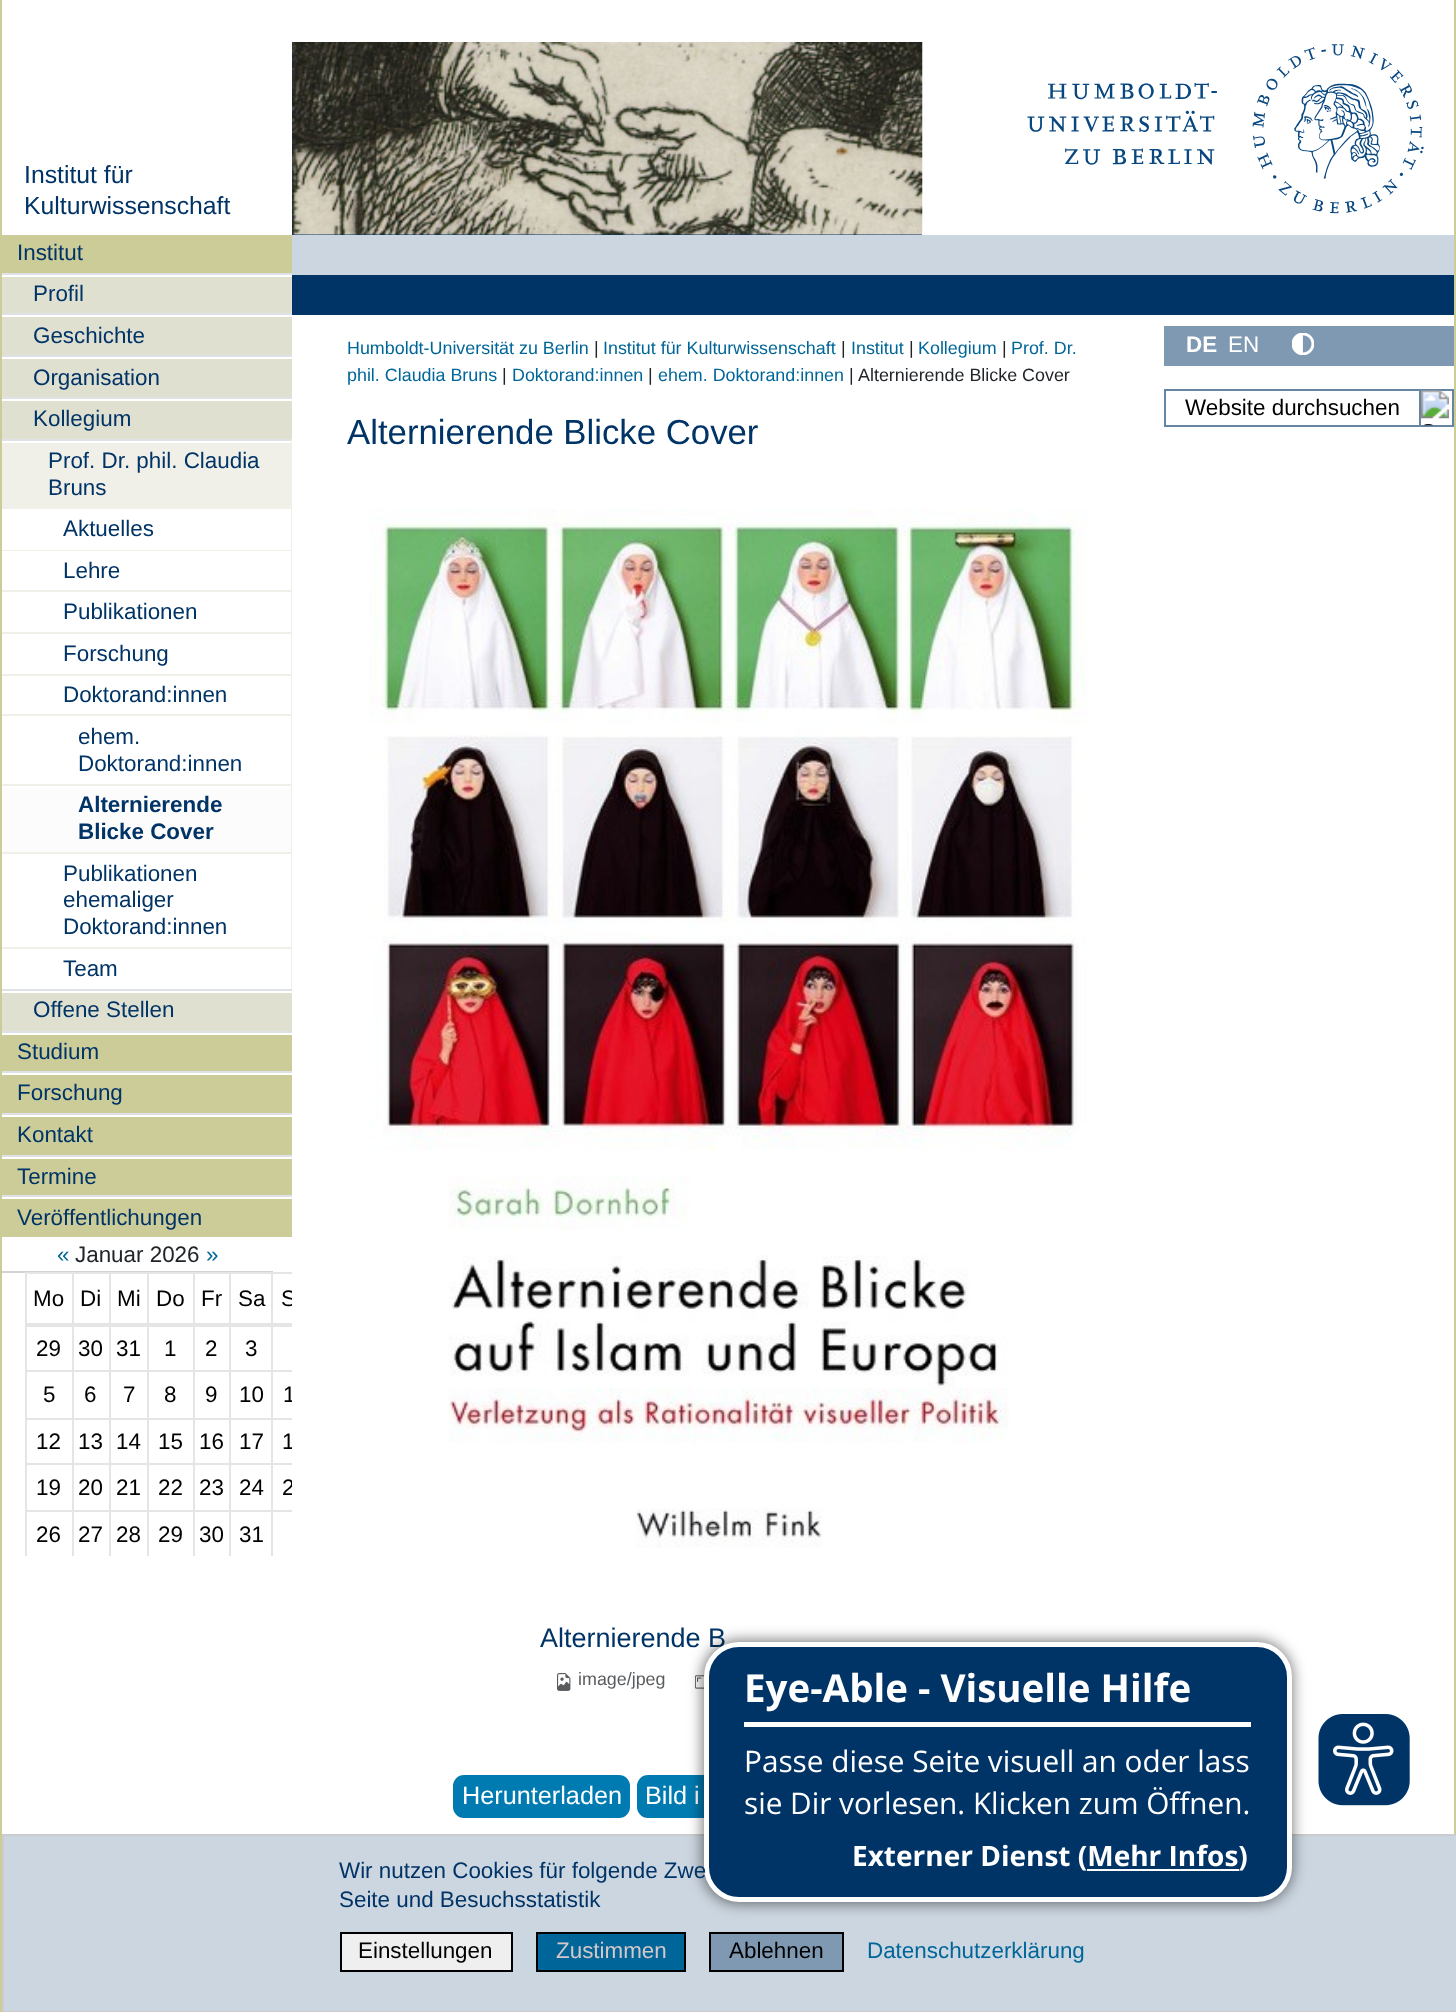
(async () => {
    const canvas = document.querySelector("canvas");
    canvas.width = 1456;
    canvas.height = 2012;
    const context = canvas.getContext("2d");
    context.miterLimit = 4;
    context.fontKerning = "normal";
    function write(s, x, y, font, color) {
        context.font = font;
        context.fillStyle = color;
        context.fillText(s, x, y);
    }
    function block(x, y, w, h, color) {
        context.fillStyle = color;
        context.fillRect(x, y, w, h);
    }
    function card(x, y, w, h, r, color) {
        context.fillStyle = color;
        context.beginPath();
        context.roundRect(x, y, w, h, r);
        context.fill();
    }
    async function photo(src, x, y, w, h) {
        const img = new Image();
        img.src = src;
        await img.decode();
        context.drawImage(img, x, y, w, h);
    }

    block(0, 0, 1456, 2012, "rgb(255, 255, 255)");
    block(292, 42, 630, 193, "rgb(0, 51, 102)");
    await photo("media/1.png", 292, 42, 631, 193);
    await photo("media/2.png", 1027, 44, 397, 170);
    block(1454, 0, 2, 1834, "rgb(204, 204, 153)");
    block(0, 0, 2, 2012, "rgb(204, 204, 153)");
    write("Institut für", 24, 183, "24.75px Liberation Sans", "rgb(0, 51, 102)");
    write("Kulturwissenschaft", 24, 214, "24.75px Liberation Sans", "rgb(0, 51, 102)");
    block(2, 235, 290, 38, "rgb(204, 204, 153)");
    write("Institut", 17, 260, "22.4px Liberation Sans", "rgb(0, 51, 102)");
    block(2, 277, 290, 36, "rgb(224, 224, 209)");
    block(2, 273, 290, 2, "rgb(222, 226, 230)");
    write("Profil", 33, 301, "22.4px Liberation Sans", "rgb(0, 51, 102)");
    block(2, 317, 290, 38, "rgb(224, 224, 209)");
    block(2, 313, 290, 2, "rgb(222, 226, 230)");
    write("Geschichte", 33, 343, "22.4px Liberation Sans", "rgb(0, 51, 102)");
    block(2, 359, 290, 38, "rgb(224, 224, 209)");
    block(2, 355, 290, 2, "rgb(222, 226, 230)");
    write("Organisation", 33, 385, "22.4px Liberation Sans", "rgb(0, 51, 102)");
    block(2, 401, 290, 38, "rgb(224, 224, 209)");
    block(2, 397, 290, 2, "rgb(222, 226, 230)");
    write("Kollegium", 33, 426, "22.4px Liberation Sans", "rgb(0, 51, 102)");
    block(2, 443, 289, 66, "rgb(240, 240, 232)");
    block(2, 439, 290, 2, "rgb(222, 226, 230)");
    block(291, 439, 1, 550, "rgb(240, 240, 232)");
    write("Prof. Dr. phil. Claudia", 48, 468, "22.4px Liberation Sans", "rgb(0, 51, 102)");
    write("Bruns", 48, 495, "22.4px Liberation Sans", "rgb(0, 51, 102)");
    write("Aktuelles", 63, 536, "22.4px Liberation Sans", "rgb(0, 51, 102)");
    block(2, 550, 289, 1, "rgb(240, 240, 232)");
    write("Lehre", 63, 578, "22.4px Liberation Sans", "rgb(0, 51, 102)");
    block(2, 590, 289, 2, "rgb(240, 240, 232)");
    write("Publikationen", 63, 619, "22.4px Liberation Sans", "rgb(0, 51, 102)");
    block(2, 632, 289, 2, "rgb(240, 240, 232)");
    write("Forschung", 63, 661, "22.4px Liberation Sans", "rgb(0, 51, 102)");
    block(2, 674, 289, 2, "rgb(240, 240, 232)");
    write("Doktorand:innen", 63, 702, "22.4px Liberation Sans", "rgb(0, 51, 102)");
    block(2, 714, 289, 2, "rgb(240, 240, 232)");
    write("ehem.", 78, 744, "22.4px Liberation Sans", "rgb(0, 51, 102)");
    write("Doktorand:innen", 78, 771, "22.4px Liberation Sans", "rgb(0, 51, 102)");
    block(2, 784, 289, 2, "rgb(240, 240, 232)");
    block(2, 788, 289, 64, "rgb(252, 252, 253)");
    write("Alternierende", 78, 812, "bold 22.4px Liberation Sans", "rgb(0, 51, 102)");
    write("Blicke Cover", 78, 839, "bold 22.4px Liberation Sans", "rgb(0, 51, 102)");
    block(2, 852, 289, 2, "rgb(240, 240, 232)");
    write("Publikationen", 63, 881, "22.4px Liberation Sans", "rgb(0, 51, 102)");
    write("ehemaliger", 63, 907, "22.4px Liberation Sans", "rgb(0, 51, 102)");
    write("Doktorand:innen", 63, 934, "22.4px Liberation Sans", "rgb(0, 51, 102)");
    block(2, 947, 289, 2, "rgb(240, 240, 232)");
    write("Team", 63, 976, "22.4px Liberation Sans", "rgb(0, 51, 102)");
    block(2, 993, 290, 38, "rgb(224, 224, 209)");
    block(2, 989, 290, 2, "rgb(222, 226, 230)");
    write("Offene Stellen", 33, 1017, "22.4px Liberation Sans", "rgb(0, 51, 102)");
    block(2, 1035, 290, 36, "rgb(204, 204, 153)");
    block(2, 1031, 290, 2, "rgb(222, 226, 230)");
    write("Studium", 17, 1059, "22.4px Liberation Sans", "rgb(0, 51, 102)");
    block(2, 1075, 290, 38, "rgb(204, 204, 153)");
    block(2, 1071, 290, 2, "rgb(222, 226, 230)");
    write("Forschung", 17, 1100, "22.4px Liberation Sans", "rgb(0, 51, 102)");
    block(2, 1117, 290, 38, "rgb(204, 204, 153)");
    block(2, 1113, 290, 2, "rgb(222, 226, 230)");
    write("Kontakt", 17, 1142, "22.4px Liberation Sans", "rgb(0, 51, 102)");
    block(2, 1159, 290, 36, "rgb(204, 204, 153)");
    block(2, 1155, 290, 2, "rgb(222, 226, 230)");
    write("Termine", 17, 1184, "22.4px Liberation Sans", "rgb(0, 51, 102)");
    block(2, 1199, 290, 38, "rgb(204, 204, 153)");
    block(2, 1195, 290, 2, "rgb(222, 226, 230)");
    write("Veröffentlichungen", 17, 1225, "22.4px Liberation Sans", "rgb(0, 51, 102)");
    block(2, 1271, 271, 2, "rgb(210, 210, 210)");
    write("«", 57, 1262, "22.4px Liberation Sans", "rgb(0, 102, 153)");
    write("Januar 2026", 75, 1262, "22.4px Liberation Sans", "rgb(33, 37, 41)");
    write("»", 206, 1262, "22.4px Liberation Sans", "rgb(0, 102, 153)");
    block(271, 1272, 21, 2, "rgb(229, 229, 229)");
    block(271, 1323, 21, 4, "rgb(229, 229, 229)");
    block(271, 1272, 2, 53, "rgb(229, 229, 229)");
    block(229, 1272, 44, 2, "rgb(229, 229, 229)");
    block(229, 1323, 44, 2, "rgb(229, 229, 229)");
    block(229, 1272, 2, 53, "rgb(229, 229, 229)");
    block(193, 1272, 38, 2, "rgb(229, 229, 229)");
    block(193, 1323, 38, 2, "rgb(229, 229, 229)");
    block(193, 1272, 2, 53, "rgb(229, 229, 229)");
    block(147, 1272, 47, 2, "rgb(229, 229, 229)");
    block(147, 1323, 47, 2, "rgb(229, 229, 229)");
    block(147, 1272, 2, 53, "rgb(229, 229, 229)");
    block(109, 1272, 40, 2, "rgb(229, 229, 229)");
    block(109, 1323, 40, 2, "rgb(229, 229, 229)");
    block(109, 1272, 2, 53, "rgb(229, 229, 229)");
    block(72, 1272, 38, 2, "rgb(229, 229, 229)");
    block(72, 1323, 38, 2, "rgb(229, 229, 229)");
    block(72, 1272, 2, 53, "rgb(229, 229, 229)");
    block(25, 1272, 49, 2, "rgb(229, 229, 229)");
    block(25, 1323, 49, 2, "rgb(229, 229, 229)");
    block(25, 1272, 2, 53, "rgb(229, 229, 229)");
    write("Mo", 33, 1306, "22.4px Liberation Sans", "rgb(0, 0, 0)");
    write("Di", 80, 1306, "22.4px Liberation Sans", "rgb(0, 0, 0)");
    write("Mi", 117, 1306, "22.4px Liberation Sans", "rgb(0, 0, 0)");
    write("Do", 156, 1306, "22.4px Liberation Sans", "rgb(0, 0, 0)");
    write("Fr", 201, 1306, "22.4px Liberation Sans", "rgb(0, 0, 0)");
    write("Sa", 238, 1306, "22.4px Liberation Sans", "rgb(0, 0, 0)");
    context.save();
    context.beginPath();
    context.rect(2, 1272, 290, 284);
    context.clip();
    write("S", 281, 1306, "22.4px Liberation Sans", "rgb(0, 0, 0)");
    context.restore();
    block(271, 1370, 21, 2, "rgb(229, 229, 229)");
    block(271, 1418, 21, 2, "rgb(229, 229, 229)");
    block(271, 1463, 21, 2, "rgb(229, 229, 229)");
    block(271, 1510, 21, 2, "rgb(229, 229, 229)");
    block(271, 1510, 2, 46, "rgb(229, 229, 229)");
    block(229, 1510, 44, 2, "rgb(229, 229, 229)");
    block(271, 1463, 2, 49, "rgb(229, 229, 229)");
    block(229, 1463, 44, 2, "rgb(229, 229, 229)");
    block(271, 1418, 2, 47, "rgb(229, 229, 229)");
    block(229, 1418, 44, 2, "rgb(229, 229, 229)");
    block(271, 1370, 2, 49, "rgb(229, 229, 229)");
    block(229, 1370, 44, 2, "rgb(229, 229, 229)");
    block(271, 1325, 2, 47, "rgb(229, 229, 229)");
    block(229, 1325, 44, 2, "rgb(229, 229, 229)");
    block(229, 1510, 2, 46, "rgb(229, 229, 229)");
    block(193, 1510, 38, 2, "rgb(229, 229, 229)");
    block(229, 1463, 2, 49, "rgb(229, 229, 229)");
    block(193, 1463, 38, 2, "rgb(229, 229, 229)");
    block(229, 1418, 2, 47, "rgb(229, 229, 229)");
    block(193, 1418, 38, 2, "rgb(229, 229, 229)");
    block(229, 1370, 2, 49, "rgb(229, 229, 229)");
    block(193, 1370, 38, 2, "rgb(229, 229, 229)");
    block(229, 1325, 2, 47, "rgb(229, 229, 229)");
    block(193, 1325, 38, 2, "rgb(229, 229, 229)");
    block(193, 1510, 2, 46, "rgb(229, 229, 229)");
    block(147, 1510, 47, 2, "rgb(229, 229, 229)");
    block(193, 1463, 2, 49, "rgb(229, 229, 229)");
    block(147, 1463, 47, 2, "rgb(229, 229, 229)");
    block(193, 1418, 2, 47, "rgb(229, 229, 229)");
    block(147, 1418, 47, 2, "rgb(229, 229, 229)");
    block(193, 1370, 2, 49, "rgb(229, 229, 229)");
    block(147, 1370, 47, 2, "rgb(229, 229, 229)");
    block(193, 1325, 2, 47, "rgb(229, 229, 229)");
    block(147, 1325, 47, 2, "rgb(229, 229, 229)");
    block(147, 1510, 2, 46, "rgb(229, 229, 229)");
    block(109, 1510, 40, 2, "rgb(229, 229, 229)");
    block(147, 1463, 2, 49, "rgb(229, 229, 229)");
    block(109, 1463, 40, 2, "rgb(229, 229, 229)");
    block(147, 1418, 2, 47, "rgb(229, 229, 229)");
    block(109, 1418, 40, 2, "rgb(229, 229, 229)");
    block(147, 1370, 2, 49, "rgb(229, 229, 229)");
    block(109, 1370, 40, 2, "rgb(229, 229, 229)");
    block(147, 1325, 2, 47, "rgb(229, 229, 229)");
    block(109, 1325, 40, 2, "rgb(229, 229, 229)");
    block(109, 1510, 2, 46, "rgb(229, 229, 229)");
    block(72, 1510, 38, 2, "rgb(229, 229, 229)");
    block(109, 1463, 2, 49, "rgb(229, 229, 229)");
    block(72, 1463, 38, 2, "rgb(229, 229, 229)");
    block(109, 1418, 2, 47, "rgb(229, 229, 229)");
    block(72, 1418, 38, 2, "rgb(229, 229, 229)");
    block(109, 1370, 2, 49, "rgb(229, 229, 229)");
    block(72, 1370, 38, 2, "rgb(229, 229, 229)");
    block(109, 1325, 2, 47, "rgb(229, 229, 229)");
    block(72, 1325, 38, 2, "rgb(229, 229, 229)");
    block(72, 1510, 2, 46, "rgb(229, 229, 229)");
    block(25, 1510, 49, 2, "rgb(229, 229, 229)");
    block(72, 1463, 2, 49, "rgb(229, 229, 229)");
    block(25, 1463, 49, 2, "rgb(229, 229, 229)");
    block(72, 1418, 2, 47, "rgb(229, 229, 229)");
    block(25, 1418, 49, 2, "rgb(229, 229, 229)");
    block(72, 1370, 2, 49, "rgb(229, 229, 229)");
    block(25, 1370, 49, 2, "rgb(229, 229, 229)");
    block(72, 1325, 2, 47, "rgb(229, 229, 229)");
    block(25, 1325, 49, 2, "rgb(229, 229, 229)");
    block(25, 1510, 2, 46, "rgb(229, 229, 229)");
    block(25, 1463, 2, 49, "rgb(229, 229, 229)");
    block(25, 1418, 2, 47, "rgb(229, 229, 229)");
    block(25, 1370, 2, 49, "rgb(229, 229, 229)");
    block(25, 1325, 2, 47, "rgb(229, 229, 229)");
    write("29", 36, 1356, "22.4px Liberation Sans", "rgb(0, 0, 0)");
    write("30", 78, 1356, "22.4px Liberation Sans", "rgb(0, 0, 0)");
    write("31", 116, 1356, "22.4px Liberation Sans", "rgb(0, 0, 0)");
    write("1", 164, 1356, "22.4px Liberation Sans", "rgb(0, 0, 0)");
    write("2", 205, 1356, "22.4px Liberation Sans", "rgb(0, 0, 0)");
    write("3", 245, 1356, "22.4px Liberation Sans", "rgb(0, 0, 0)");
    write("5", 43, 1402, "22.4px Liberation Sans", "rgb(0, 0, 0)");
    write("6", 84, 1402, "22.4px Liberation Sans", "rgb(0, 0, 0)");
    write("7", 123, 1402, "22.4px Liberation Sans", "rgb(0, 0, 0)");
    write("8", 164, 1402, "22.4px Liberation Sans", "rgb(0, 0, 0)");
    write("9", 205, 1402, "22.4px Liberation Sans", "rgb(0, 0, 0)");
    write("10", 239, 1402, "22.4px Liberation Sans", "rgb(0, 0, 0)");
    context.save();
    context.beginPath();
    context.rect(2, 1272, 290, 284);
    context.clip();
    write("1", 283, 1402, "22.4px Liberation Sans", "rgb(0, 0, 0)");
    context.restore();
    write("12", 36, 1449, "22.4px Liberation Sans", "rgb(0, 0, 0)");
    write("13", 78, 1449, "22.4px Liberation Sans", "rgb(0, 0, 0)");
    write("14", 116, 1449, "22.4px Liberation Sans", "rgb(0, 0, 0)");
    write("15", 158, 1449, "22.4px Liberation Sans", "rgb(0, 0, 0)");
    write("16", 199, 1449, "22.4px Liberation Sans", "rgb(0, 0, 0)");
    write("17", 239, 1449, "22.4px Liberation Sans", "rgb(0, 0, 0)");
    context.save();
    context.beginPath();
    context.rect(2, 1272, 290, 284);
    context.clip();
    write("1", 282, 1449, "22.4px Liberation Sans", "rgb(0, 0, 0)");
    context.restore();
    write("19", 36, 1495, "22.4px Liberation Sans", "rgb(0, 0, 0)");
    write("20", 78, 1495, "22.4px Liberation Sans", "rgb(0, 0, 0)");
    write("21", 116, 1495, "22.4px Liberation Sans", "rgb(0, 0, 0)");
    write("22", 158, 1495, "22.4px Liberation Sans", "rgb(0, 0, 0)");
    write("23", 199, 1495, "22.4px Liberation Sans", "rgb(0, 0, 0)");
    write("24", 239, 1495, "22.4px Liberation Sans", "rgb(0, 0, 0)");
    context.save();
    context.beginPath();
    context.rect(2, 1272, 290, 284);
    context.clip();
    write("2", 282, 1495, "22.4px Liberation Sans", "rgb(0, 0, 0)");
    context.restore();
    write("26", 36, 1542, "22.4px Liberation Sans", "rgb(0, 0, 0)");
    write("27", 78, 1542, "22.4px Liberation Sans", "rgb(0, 0, 0)");
    write("28", 116, 1542, "22.4px Liberation Sans", "rgb(0, 0, 0)");
    write("29", 158, 1542, "22.4px Liberation Sans", "rgb(0, 0, 0)");
    write("30", 199, 1542, "22.4px Liberation Sans", "rgb(0, 0, 0)");
    write("31", 239, 1542, "22.4px Liberation Sans", "rgb(0, 0, 0)");
    block(292, 235, 1162, 40, "rgb(204, 214, 224)");
    block(292, 275, 1162, 40, "rgb(0, 51, 102)");
    write("Humboldt-Universität zu Berlin", 347, 354, "17.9px Liberation Sans", "rgb(0, 102, 153)");
    write("|", 594, 354, "17.9px Liberation Sans", "rgb(33, 37, 41)");
    write("Institut für Kulturwissenschaft", 603, 354, "17.9px Liberation Sans", "rgb(0, 102, 153)");
    write("|", 841, 354, "17.9px Liberation Sans", "rgb(33, 37, 41)");
    write("Institut", 851, 354, "17.9px Liberation Sans", "rgb(0, 102, 153)");
    write("|", 909, 354, "17.9px Liberation Sans", "rgb(33, 37, 41)");
    write("Kollegium", 918, 354, "17.9px Liberation Sans", "rgb(0, 102, 153)");
    write("|", 1002, 354, "17.9px Liberation Sans", "rgb(33, 37, 41)");
    write("Prof. Dr.", 1011, 354, "17.9px Liberation Sans", "rgb(0, 102, 153)");
    write("phil. Claudia Bruns", 347, 381, "17.9px Liberation Sans", "rgb(0, 102, 153)");
    write("|", 502, 381, "17.9px Liberation Sans", "rgb(33, 37, 41)");
    write("Doktorand:innen", 512, 381, "17.9px Liberation Sans", "rgb(0, 102, 153)");
    write("|", 648, 381, "17.9px Liberation Sans", "rgb(33, 37, 41)");
    write("ehem. Doktorand:innen", 658, 381, "17.9px Liberation Sans", "rgb(0, 102, 153)");
    write("|", 849, 381, "17.9px Liberation Sans", "rgb(33, 37, 41)");
    write("Alternierende Blicke Cover", 858, 381, "17.9px Liberation Sans", "rgb(33, 37, 41)");
    write("Alternierende Blicke Cover", 347, 444, "34.75px Liberation Sans", "rgb(0, 51, 102)");
    await photo("media/3.png", 369, 509, 718, 1039);
    write("Alternierende B", 540, 1647, "27px Liberation Sans", "rgb(0, 51, 102)");
    await photo("media/4.png", 557, 1673, 14, 18);
    write("image/jpeg", 578, 1685, "17.9px Liberation Sans", "rgb(89, 92, 95)");
    await photo("media/5.png", 695, 1675, 10, 14);
    card(453, 1775, 177, 43, 11, "rgb(0, 123, 177)");
    write("Herunterladen", 462, 1804, "25.25px Liberation Sans", "rgb(255, 255, 255)");
    card(637, 1775, 366, 43, 11, "rgb(0, 123, 177)");
    write("Bild i", 645, 1804, "25.25px Liberation Sans", "rgb(255, 255, 255)");
    block(1164, 326, 290, 40, "rgb(128, 153, 178)");
    write("DE", 1186, 352, "bold 22.4px Liberation Sans", "rgb(255, 255, 255)");
    write("EN", 1228, 352, "22.4px Liberation Sans", "rgb(255, 255, 255)");
    await photo("media/6.png", 1292, 333, 22, 22);
    context.strokeStyle = "rgb(102, 133, 163)";
    context.lineWidth = 2;
    context.strokeRect(1165, 390, 288, 36);
    write("Website durchsuchen", 1185, 415, "22.4px Liberation Sans", "rgb(0, 0, 0)");
    context.strokeRect(1420, 390, 33, 36);
    await photo("media/7.png", 1421, 390, 28, 36);
    context.fillStyle = "rgb(204, 214, 224)";
    context.beginPath();
    context.rect(3, 1835, 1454, 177);
    context.fill();
    context.strokeStyle = "rgb(204, 204, 204)";
    context.stroke();
    context.fillStyle = "rgba(0, 0, 0, 0.5)";
    context.filter = "blur(7px)";
    context.beginPath();
    context.roundRect(702, 1640, 591, 264, 37);
    context.fill();
    context.filter = "none";
    context.fillStyle = "rgb(0, 51, 102)";
    context.beginPath();
    context.roundRect(706.5, 1644.5, 583, 255, 32.5);
    context.fill();
    context.strokeStyle = "rgb(255, 255, 255)";
    context.lineWidth = 5;
    context.stroke();
    block(744, 1722, 507, 5, "rgb(255, 255, 255)");
    write("Eye-Able - Visuelle Hilfe", 744, 1702, "bold 38.5px Open Sans", "rgb(255, 255, 255)");
    write("Passe diese Seite visuell an oder lass", 744, 1772, "29.75px Open Sans", "rgb(255, 255, 255)");
    write("sie Dir vorlesen. Klicken zum Öffnen.", 744, 1814, "29.75px Open Sans", "rgb(255, 255, 255)");
    write("Externer Dienst (Mehr Infos)", 852, 1866, "bold 28px Open Sans", "rgb(255, 255, 255)");
    block(1087, 1869, 152, 2, "rgb(255, 255, 255)");
    await photo("media/8.png", 1318, 1714, 92, 92);
    write("Wir nutzen Cookies für folgende Zwe", 339, 1878, "22.4px Liberation Sans", "rgb(0, 51, 102)");
    write("Seite und Besuchsstatistik", 339, 1907, "22.4px Liberation Sans", "rgb(0, 51, 102)");
    context.fillStyle = "rgb(239, 239, 239)";
    context.beginPath();
    context.rect(341, 1933, 171, 38);
    context.fill();
    context.strokeStyle = "rgb(0, 0, 0)";
    context.lineWidth = 2;
    context.stroke();
    write("Einstellungen", 358, 1958, "22.4px Liberation Sans", "rgb(0, 0, 0)");
    context.fillStyle = "rgb(0, 102, 153)";
    context.beginPath();
    context.rect(537, 1933, 148, 38);
    context.fill();
    context.stroke();
    write("Zustimmen", 556, 1958, "22.4px Liberation Sans", "rgb(213, 199, 199)");
    context.fillStyle = "rgb(128, 153, 178)";
    context.beginPath();
    context.rect(710, 1933, 133, 38);
    context.fill();
    context.stroke();
    write("Ablehnen", 729, 1958, "22.4px Liberation Sans", "rgb(0, 0, 0)");
    write("Datenschutzerklärung", 867, 1958, "22.4px Liberation Sans", "rgb(0, 102, 153)");
})();
